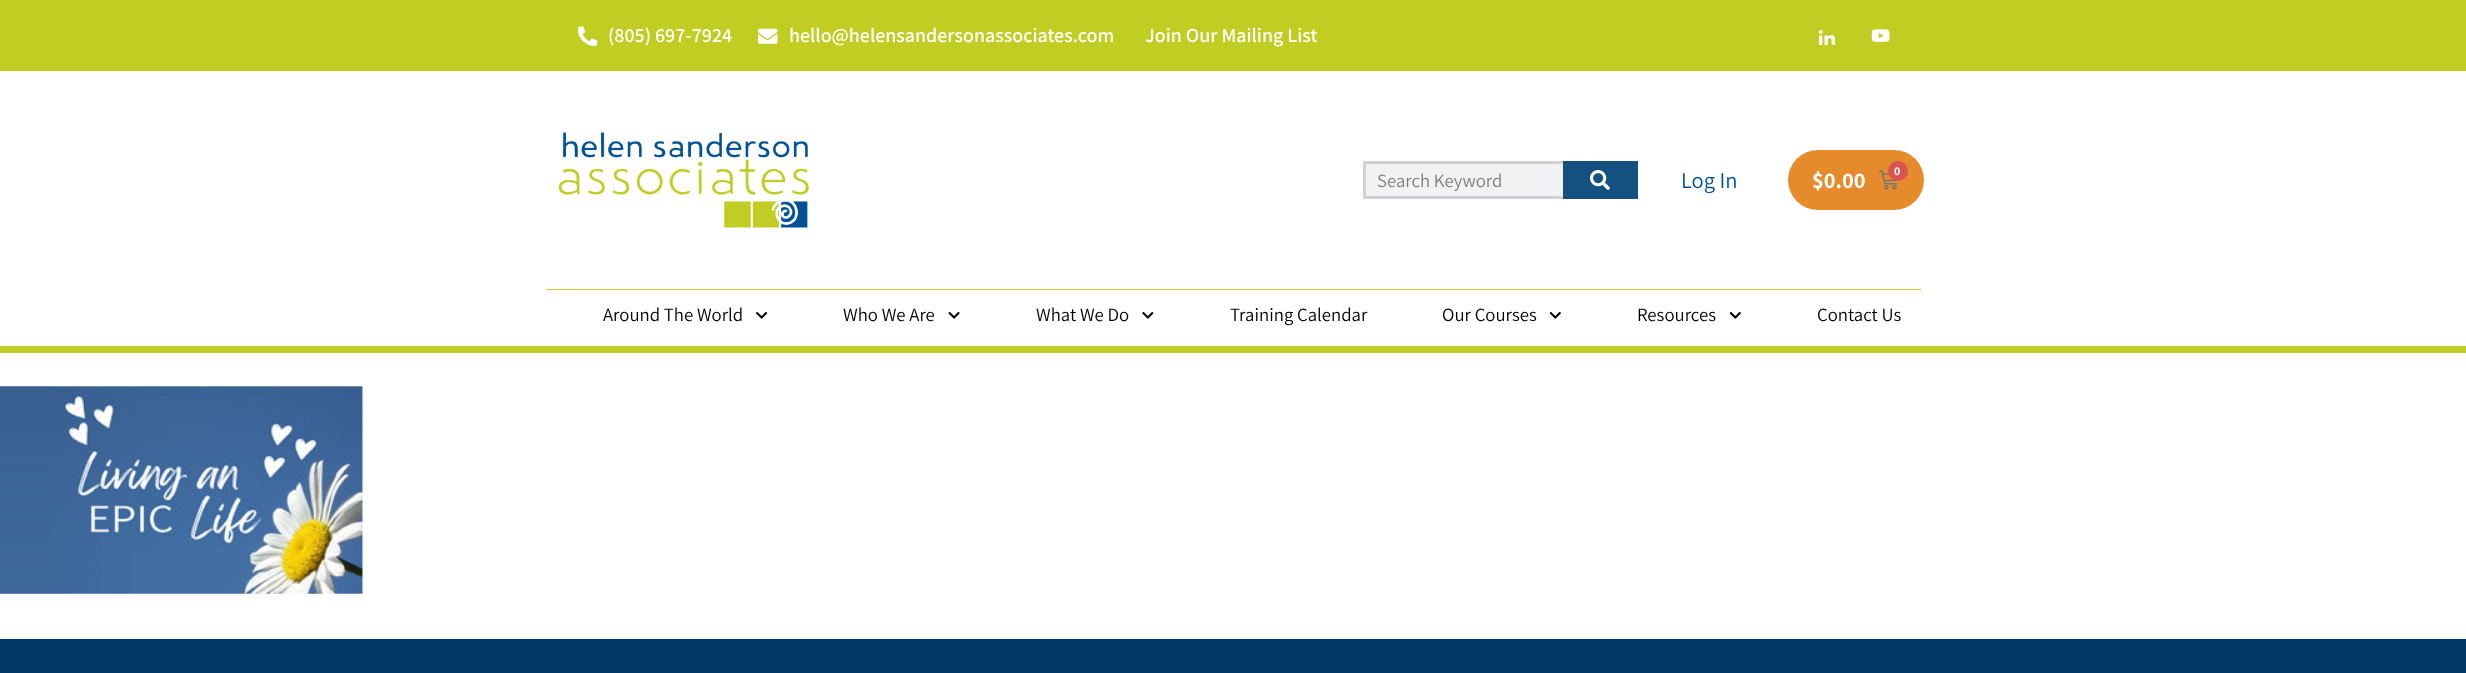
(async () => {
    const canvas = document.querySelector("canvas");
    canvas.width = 2466;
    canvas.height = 673;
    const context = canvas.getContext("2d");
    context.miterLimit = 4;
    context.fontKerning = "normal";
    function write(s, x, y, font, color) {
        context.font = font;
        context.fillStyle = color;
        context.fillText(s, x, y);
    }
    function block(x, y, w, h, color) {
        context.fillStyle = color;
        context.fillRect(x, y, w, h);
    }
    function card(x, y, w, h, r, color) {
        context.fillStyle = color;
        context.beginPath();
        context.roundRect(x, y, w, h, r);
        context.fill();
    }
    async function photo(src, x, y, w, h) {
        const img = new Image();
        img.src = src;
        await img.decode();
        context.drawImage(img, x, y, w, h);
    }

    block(0, 0, 2466, 673, "rgb(255, 255, 255)");
    block(0, 0, 2466, 71, "rgb(193, 205, 35)");
    await photo("media/1.png", 578, 26, 20, 20);
    write("(805) 697-7924", 608, 42, "600 20px Assistant", "rgb(255, 255, 255)");
    await photo("media/2.png", 758, 28, 20, 16);
    write("hello@helensandersonassociates.com", 789, 42, "600 20px Assistant", "rgb(255, 255, 255)");
    write("Join Our Mailing List", 1145, 42, "600 20px Assistant", "rgb(255, 255, 255)");
    await photo("media/3.png", 1818, 30, 18, 15);
    await photo("media/4.png", 1871, 29, 19, 13);
    await photo("media/5.png", 558, 132, 251, 96);
    block(1366, 164, 197, 32, "rgb(241, 242, 243)");
    block(1363, 161, 202, 3, "rgb(210, 210, 210)");
    block(1363, 196, 202, 3, "rgb(210, 210, 210)");
    block(1363, 161, 3, 38, "rgb(210, 210, 210)");
    write("Search Keyword", 1377, 187, "18.75px Assistant", "rgb(127, 127, 128)");
    block(1563, 161, 75, 38, "rgb(21, 81, 128)");
    await photo("media/6.png", 1590, 170, 20, 20);
    write("Log In", 1681, 188, "22.5px Assistant", "rgb(3, 84, 150)");
    card(1788, 150, 136, 60, 30, "rgb(230, 139, 43)");
    write("$0.00", 1812, 188, "bold 22.5px Assistant", "rgb(255, 255, 255)");
    await photo("media/7.png", 1879, 170, 19, 20);
    context.fillStyle = "rgb(217, 83, 79)";
    context.beginPath();
    context.arc(1898, 171, 10, 0, Math.PI * 2);
    context.fill();
    write("0", 1894, 175, "bold 12px Assistant", "rgb(255, 255, 255)");
    block(0, 346, 2466, 7, "rgb(193, 205, 35)");
    block(546, 289, 1375, 1, "rgb(193, 205, 35)");
    write("Around The World", 603, 321, "18.75px Assistant", "rgb(0, 0, 0)");
    await photo("media/8.png", 756, 312, 12, 7);
    write("Who We Are", 843, 321, "18.75px Assistant", "rgb(0, 0, 0)");
    await photo("media/9.png", 948, 312, 12, 7);
    write("What We Do", 1036, 321, "18.75px Assistant", "rgb(0, 0, 0)");
    await photo("media/10.png", 1142, 312, 12, 7);
    write("Training Calendar", 1230, 321, "18.75px Assistant", "rgb(0, 0, 0)");
    write("Our Courses", 1442, 321, "18.75px Assistant", "rgb(0, 0, 0)");
    await photo("media/11.png", 1549, 312, 12, 7);
    write("Resources", 1637, 321, "18.75px Assistant", "rgb(0, 0, 0)");
    await photo("media/11.png", 1729, 312, 12, 7);
    write("Contact Us", 1817, 321, "18.75px Assistant", "rgb(0, 0, 0)");
    await photo("media/12.png", 0, 386, 363, 208);
    block(0, 639, 2466, 34, "rgb(1, 57, 100)");
})();
